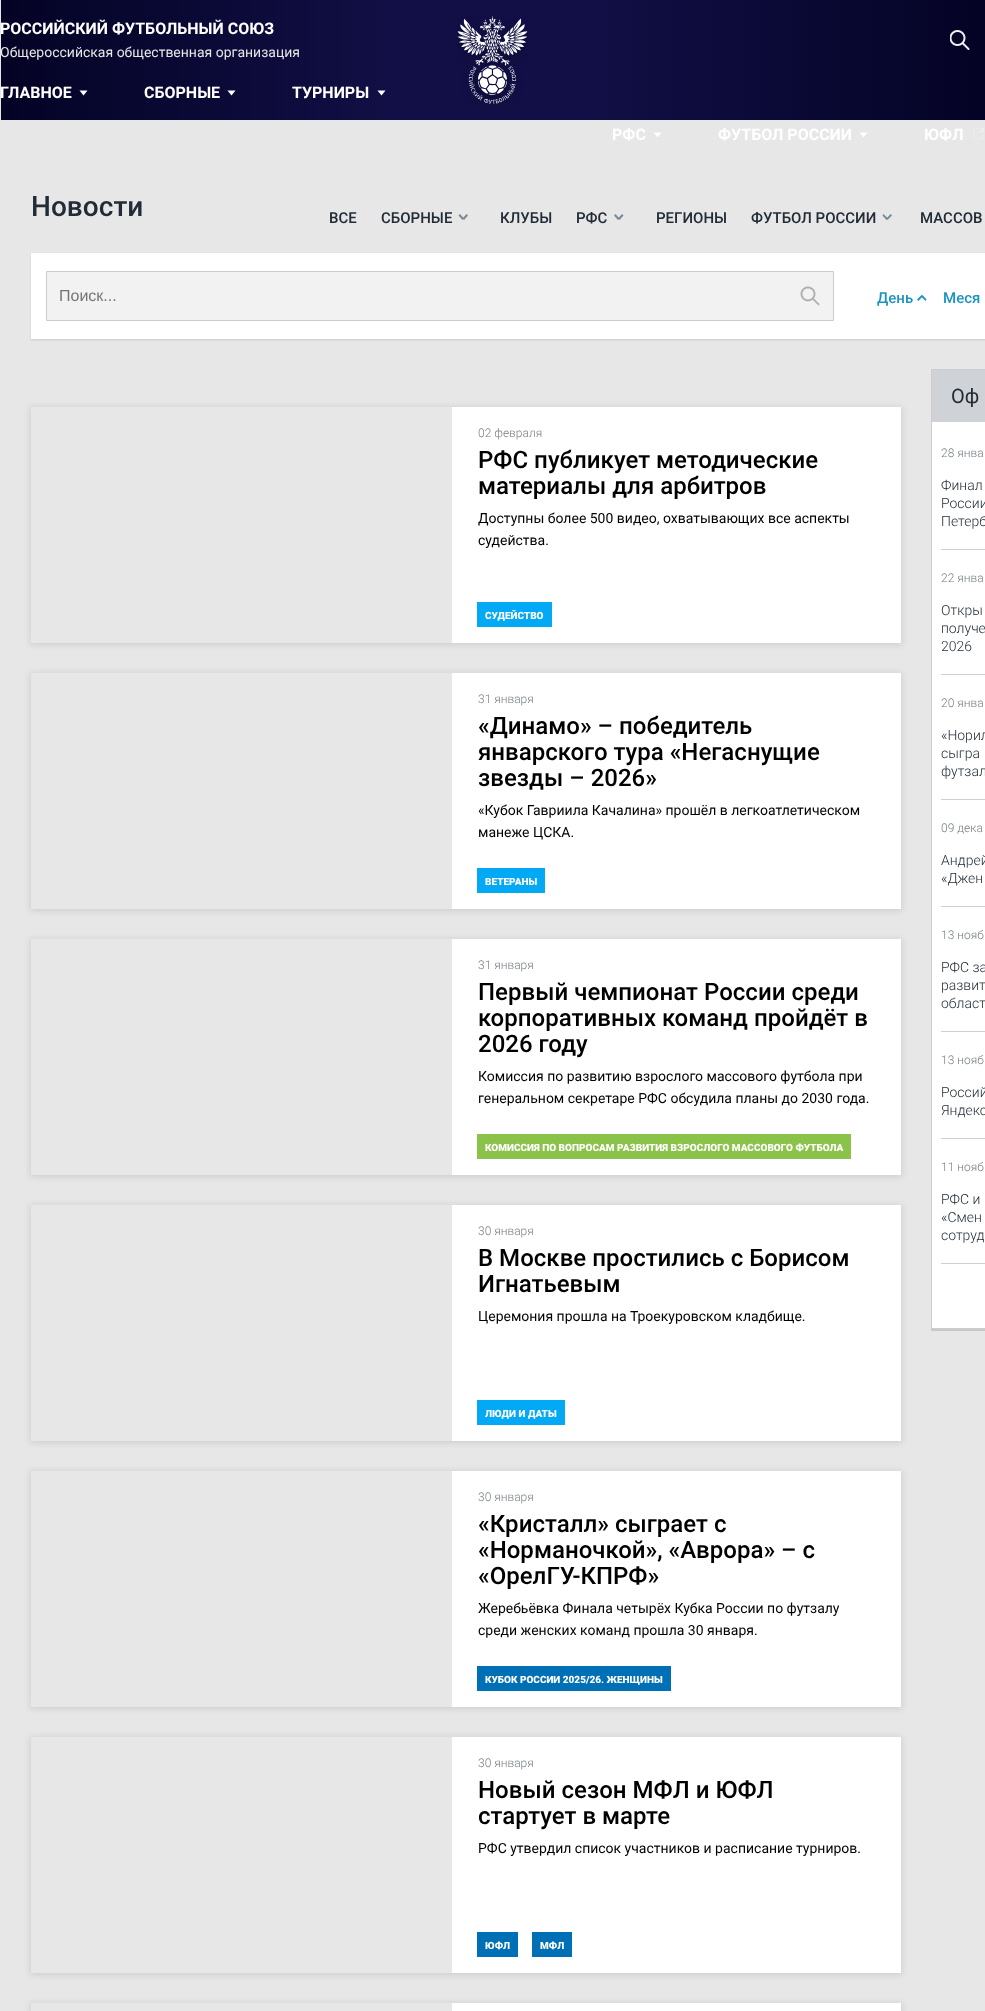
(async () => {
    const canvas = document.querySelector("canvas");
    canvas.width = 985;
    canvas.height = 2011;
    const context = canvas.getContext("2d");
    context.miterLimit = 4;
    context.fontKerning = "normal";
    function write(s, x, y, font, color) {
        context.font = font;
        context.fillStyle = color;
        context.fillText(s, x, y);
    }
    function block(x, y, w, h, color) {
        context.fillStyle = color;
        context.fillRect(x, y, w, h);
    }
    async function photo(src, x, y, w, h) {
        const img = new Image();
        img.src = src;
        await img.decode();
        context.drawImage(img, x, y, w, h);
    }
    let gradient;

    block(0, 0, 985, 2011, "rgb(231, 231, 231)");
    gradient = context.createLinearGradient(0.5, 60, 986, 60);
    gradient.addColorStop(0, "rgb(4, 3, 37)");
    gradient.addColorStop(0.4, "rgb(17, 15, 69)");
    gradient.addColorStop(0.6, "rgb(17, 15, 69)");
    gradient.addColorStop(1, "rgb(4, 3, 37)");
    context.fillStyle = gradient;
    context.fillRect(1, 0, 984, 120);
    write("РОССИЙСКИЙ ФУТБОЛЬНЫЙ СОЮЗ", 0, 34, "bold 16px Roboto", "rgb(255, 255, 255)");
    write("Общероссийская общественная организация", 0, 57, "14px Roboto", "rgb(231, 231, 231)");
    await photo("media/1.png", 457, 16, 71, 88);
    await photo("media/2.png", 950, 30, 20, 20);
    write("ГЛАВНОЕ", 0, 98, "bold 16px Roboto", "rgb(255, 255, 255)");
    context.beginPath();
    context.moveTo(79.5, 90.5);
    context.lineTo(87.5, 90.5);
    context.lineTo(83.5, 95.5);
    context.closePath();
    context.fill();
    write("СБОРНЫЕ", 144, 98, "bold 16px Roboto", "rgb(255, 255, 255)");
    context.beginPath();
    context.moveTo(227.5, 90.5);
    context.lineTo(235.5, 90.5);
    context.lineTo(231.5, 95.5);
    context.closePath();
    context.fill();
    write("ТУРНИРЫ", 292, 98, "bold 16px Roboto", "rgb(255, 255, 255)");
    context.beginPath();
    context.moveTo(377.5, 90.5);
    context.lineTo(385.5, 90.5);
    context.lineTo(381.5, 95.5);
    context.closePath();
    context.fill();
    write("РФС", 612, 140, "bold 16px Roboto", "rgb(255, 255, 255)");
    context.beginPath();
    context.moveTo(653.5, 132.5);
    context.lineTo(661.5, 132.5);
    context.lineTo(657.5, 137.5);
    context.closePath();
    context.fill();
    write("ФУТБОЛ РОССИИ", 718, 140, "bold 16px Roboto", "rgb(255, 255, 255)");
    context.beginPath();
    context.moveTo(859.5, 132.5);
    context.lineTo(867.5, 132.5);
    context.lineTo(863.5, 137.5);
    context.closePath();
    context.fill();
    write("ЮФЛ", 924, 140, "bold 16px Roboto", "rgb(255, 255, 255)");
    await photo("media/3.png", 973, 128, 11, 11);
    write("Новости", 31, 216, "500 28px Roboto", "rgb(34, 44, 55)");
    write("ВСЕ", 329, 223, "500 15px Roboto", "rgb(34, 44, 55)");
    write("СБОРНЫЕ", 381, 223, "500 15px Roboto", "rgb(34, 44, 55)");
    context.fillStyle = "rgb(121, 136, 151)";
    context.beginPath();
    context.moveTo(458.5, 215.5);
    context.lineTo(460, 214);
    context.lineTo(464, 218.5);
    context.lineTo(462.5, 220);
    context.closePath();
    context.fill();
    context.beginPath();
    context.moveTo(466.5, 214);
    context.lineTo(468, 215.5);
    context.lineTo(464, 220);
    context.lineTo(462.5, 218.5);
    context.closePath();
    context.fill();
    write("КЛУБЫ", 500, 223, "500 15px Roboto", "rgb(34, 44, 55)");
    write("РФС", 576, 223, "500 15px Roboto", "rgb(34, 44, 55)");
    context.fillStyle = "rgb(121, 136, 151)";
    context.beginPath();
    context.moveTo(614, 215.5);
    context.lineTo(615.5, 214);
    context.lineTo(619.5, 218.5);
    context.lineTo(618, 220);
    context.closePath();
    context.fill();
    context.beginPath();
    context.moveTo(622, 214);
    context.lineTo(623.5, 215.5);
    context.lineTo(619.5, 220);
    context.lineTo(618, 218.5);
    context.closePath();
    context.fill();
    write("РЕГИОНЫ", 656, 223, "500 15px Roboto", "rgb(34, 44, 55)");
    write("ФУТБОЛ РОССИИ", 751, 223, "500 15px Roboto", "rgb(34, 44, 55)");
    context.fillStyle = "rgb(121, 136, 151)";
    context.beginPath();
    context.moveTo(882.5, 215.5);
    context.lineTo(883.5, 214);
    context.lineTo(888, 218.5);
    context.lineTo(886.5, 220);
    context.closePath();
    context.fill();
    context.beginPath();
    context.moveTo(890.5, 214);
    context.lineTo(892, 215.5);
    context.lineTo(887.5, 220);
    context.lineTo(886.5, 218.5);
    context.closePath();
    context.fill();
    write("МАССОВ", 920, 223, "500 15px Roboto", "rgb(34, 44, 55)");
    context.fillStyle = "rgb(201, 201, 201)";
    context.filter = "blur(1px)";
    context.beginPath();
    context.rect(31, 254, 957, 86);
    context.fill();
    context.filter = "none";
    block(31, 253, 954, 86, "rgb(255, 255, 255)");
    context.fillStyle = "rgb(242, 242, 242)";
    context.beginPath();
    context.rect(46.5, 271.5, 787, 49);
    context.fill();
    context.strokeStyle = "rgb(204, 204, 204)";
    context.stroke();
    write("Поиск...", 59, 301, "16px Liberation Sans", "rgb(117, 117, 117)");
    await photo("media/4.png", 800, 286, 20, 20);
    write("День", 877, 303, "500 15px Roboto", "rgb(28, 148, 193)");
    context.beginPath();
    context.moveTo(921, 296.5);
    context.lineTo(922.5, 295);
    context.lineTo(926.5, 299.5);
    context.lineTo(925.5, 301);
    context.closePath();
    context.fill();
    context.beginPath();
    context.moveTo(921.5, 295);
    context.lineTo(922.5, 296.5);
    context.lineTo(918.5, 301);
    context.lineTo(917, 299.5);
    context.closePath();
    context.fill();
    write("Меся", 943, 303, "500 15px Roboto", "rgb(28, 148, 193)");
    context.save();
    context.beginPath();
    context.moveTo(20, 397);
    context.lineTo(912, 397);
    context.lineTo(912, 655);
    context.lineTo(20, 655);
    context.closePath();
    context.moveTo(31, 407);
    context.lineTo(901, 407);
    context.lineTo(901, 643);
    context.lineTo(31, 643);
    context.closePath();
    context.clip("evenodd");
    context.fillStyle = "rgba(0, 0, 0, 0.1)";
    context.filter = "blur(3px)";
    context.beginPath();
    context.rect(30, 407, 872, 238);
    context.fill();
    context.filter = "none";
    context.restore();
    block(452, 407, 449, 236, "rgb(255, 255, 255)");
    write("02 февраля", 478, 437, "300 12px Roboto", "rgb(118, 126, 133)");
    write("РФС публикует методические", 478, 468, "500 24px Roboto", "rgb(0, 0, 0)");
    write("материалы для арбитров", 478, 494, "500 24px Roboto", "rgb(0, 0, 0)");
    write("Доступны более 500 видео, охватывающих все аспекты", 478, 523, "14px Roboto", "rgb(0, 0, 0)");
    write("судейства.", 478, 545, "14px Roboto", "rgb(0, 0, 0)");
    block(477, 602, 75, 25, "rgb(3, 169, 244)");
    write("СУДЕЙСТВО", 485, 619, "900 10px Roboto", "rgb(255, 255, 255)");
    context.save();
    context.beginPath();
    context.moveTo(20, 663);
    context.lineTo(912, 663);
    context.lineTo(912, 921);
    context.lineTo(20, 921);
    context.closePath();
    context.moveTo(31, 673);
    context.lineTo(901, 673);
    context.lineTo(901, 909);
    context.lineTo(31, 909);
    context.closePath();
    context.clip("evenodd");
    context.fillStyle = "rgba(0, 0, 0, 0.1)";
    context.filter = "blur(3px)";
    context.beginPath();
    context.rect(30, 673, 872, 238);
    context.fill();
    context.filter = "none";
    context.restore();
    block(452, 673, 449, 236, "rgb(255, 255, 255)");
    write("31 января", 478, 703, "300 12px Roboto", "rgb(118, 126, 133)");
    write("«Динамо» – победитель", 478, 734, "500 24px Roboto", "rgb(0, 0, 0)");
    write("январского тура «Негаснущие", 478, 760, "500 24px Roboto", "rgb(0, 0, 0)");
    write("звезды – 2026»", 478, 786, "500 24px Roboto", "rgb(0, 0, 0)");
    write("«Кубок Гавриила Качалина» прошёл в легкоатлетическом", 478, 815, "14px Roboto", "rgb(0, 0, 0)");
    write("манеже ЦСКА.", 478, 837, "14px Roboto", "rgb(0, 0, 0)");
    block(477, 868, 68, 25, "rgb(3, 169, 244)");
    write("ВЕТЕРАНЫ", 485, 885, "900 10px Roboto", "rgb(255, 255, 255)");
    context.save();
    context.beginPath();
    context.moveTo(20, 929);
    context.lineTo(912, 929);
    context.lineTo(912, 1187);
    context.lineTo(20, 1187);
    context.closePath();
    context.moveTo(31, 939);
    context.lineTo(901, 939);
    context.lineTo(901, 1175);
    context.lineTo(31, 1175);
    context.closePath();
    context.clip("evenodd");
    context.fillStyle = "rgba(0, 0, 0, 0.1)";
    context.filter = "blur(3px)";
    context.beginPath();
    context.rect(30, 939, 872, 238);
    context.fill();
    context.filter = "none";
    context.restore();
    block(452, 939, 449, 236, "rgb(255, 255, 255)");
    write("31 января", 478, 969, "300 12px Roboto", "rgb(118, 126, 133)");
    write("Первый чемпионат России среди", 478, 1000, "500 24px Roboto", "rgb(0, 0, 0)");
    write("корпоративных команд пройдёт в", 478, 1026, "500 24px Roboto", "rgb(0, 0, 0)");
    write("2026 году", 478, 1052, "500 24px Roboto", "rgb(0, 0, 0)");
    write("Комиссия по развитию взрослого массового футбола при", 478, 1081, "14px Roboto", "rgb(0, 0, 0)");
    write("генеральном секретаре РФС обсудила планы до 2030 года.", 478, 1103, "14px Roboto", "rgb(0, 0, 0)");
    block(477, 1134, 374, 25, "rgb(139, 195, 74)");
    write("КОМИССИЯ ПО ВОПРОСАМ РАЗВИТИЯ ВЗРОСЛОГО МАССОВОГО ФУТБОЛА", 485, 1151, "900 10px Roboto", "rgb(255, 255, 255)");
    context.save();
    context.beginPath();
    context.moveTo(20, 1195);
    context.lineTo(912, 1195);
    context.lineTo(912, 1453);
    context.lineTo(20, 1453);
    context.closePath();
    context.moveTo(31, 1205);
    context.lineTo(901, 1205);
    context.lineTo(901, 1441);
    context.lineTo(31, 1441);
    context.closePath();
    context.clip("evenodd");
    context.fillStyle = "rgba(0, 0, 0, 0.1)";
    context.filter = "blur(3px)";
    context.beginPath();
    context.rect(30, 1205, 872, 238);
    context.fill();
    context.filter = "none";
    context.restore();
    block(452, 1205, 449, 236, "rgb(255, 255, 255)");
    write("30 января", 478, 1235, "300 12px Roboto", "rgb(118, 126, 133)");
    write("В Москве простились с Борисом", 478, 1266, "500 24px Roboto", "rgb(0, 0, 0)");
    write("Игнатьевым", 478, 1292, "500 24px Roboto", "rgb(0, 0, 0)");
    write("Церемония прошла на Троекуровском кладбище.", 478, 1321, "14px Roboto", "rgb(0, 0, 0)");
    block(477, 1400, 88, 25, "rgb(3, 169, 244)");
    write("ЛЮДИ И ДАТЫ", 485, 1417, "900 10px Roboto", "rgb(255, 255, 255)");
    context.save();
    context.beginPath();
    context.moveTo(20, 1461);
    context.lineTo(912, 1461);
    context.lineTo(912, 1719);
    context.lineTo(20, 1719);
    context.closePath();
    context.moveTo(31, 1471);
    context.lineTo(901, 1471);
    context.lineTo(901, 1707);
    context.lineTo(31, 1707);
    context.closePath();
    context.clip("evenodd");
    context.fillStyle = "rgba(0, 0, 0, 0.1)";
    context.filter = "blur(3px)";
    context.beginPath();
    context.rect(30, 1471, 872, 238);
    context.fill();
    context.filter = "none";
    context.restore();
    block(452, 1471, 449, 236, "rgb(255, 255, 255)");
    write("30 января", 478, 1501, "300 12px Roboto", "rgb(118, 126, 133)");
    write("«Кристалл» сыграет с", 478, 1532, "500 24px Roboto", "rgb(0, 0, 0)");
    write("«Норманочкой», «Аврора» – с", 478, 1558, "500 24px Roboto", "rgb(0, 0, 0)");
    write("«ОрелГУ-КПРФ»", 478, 1584, "500 24px Roboto", "rgb(0, 0, 0)");
    write("Жеребьёвка Финала четырёх Кубка России по футзалу", 478, 1613, "14px Roboto", "rgb(0, 0, 0)");
    write("среди женских команд прошла 30 января.", 478, 1635, "14px Roboto", "rgb(0, 0, 0)");
    block(477, 1666, 194, 25, "rgb(0, 112, 182)");
    write("КУБОК РОССИИ 2025/26. ЖЕНЩИНЫ", 485, 1683, "900 10px Roboto", "rgb(255, 255, 255)");
    context.save();
    context.beginPath();
    context.moveTo(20, 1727);
    context.lineTo(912, 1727);
    context.lineTo(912, 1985);
    context.lineTo(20, 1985);
    context.closePath();
    context.moveTo(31, 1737);
    context.lineTo(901, 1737);
    context.lineTo(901, 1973);
    context.lineTo(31, 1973);
    context.closePath();
    context.clip("evenodd");
    context.fillStyle = "rgba(0, 0, 0, 0.1)";
    context.filter = "blur(3px)";
    context.beginPath();
    context.rect(30, 1737, 872, 238);
    context.fill();
    context.filter = "none";
    context.restore();
    block(452, 1737, 449, 236, "rgb(255, 255, 255)");
    write("30 января", 478, 1767, "300 12px Roboto", "rgb(118, 126, 133)");
    write("Новый сезон МФЛ и ЮФЛ", 478, 1798, "500 24px Roboto", "rgb(0, 0, 0)");
    write("стартует в марте", 478, 1824, "500 24px Roboto", "rgb(0, 0, 0)");
    write("РФС утвердил список участников и расписание турниров.", 478, 1853, "14px Roboto", "rgb(0, 0, 0)");
    block(477, 1932, 41, 25, "rgb(0, 112, 182)");
    write("ЮФЛ", 485, 1949, "900 10px Roboto", "rgb(255, 255, 255)");
    block(532, 1932, 40, 25, "rgb(0, 112, 182)");
    write("МФЛ", 540, 1949, "900 10px Roboto", "rgb(255, 255, 255)");
    context.save();
    context.beginPath();
    context.moveTo(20, 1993);
    context.lineTo(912, 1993);
    context.lineTo(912, 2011);
    context.lineTo(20, 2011);
    context.closePath();
    context.moveTo(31, 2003);
    context.lineTo(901, 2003);
    context.lineTo(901, 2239);
    context.lineTo(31, 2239);
    context.closePath();
    context.clip("evenodd");
    context.fillStyle = "rgba(0, 0, 0, 0.1)";
    context.filter = "blur(3px)";
    context.beginPath();
    context.rect(30, 2003, 872, 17);
    context.fill();
    context.filter = "none";
    context.restore();
    block(452, 2003, 449, 8, "rgb(255, 255, 255)");
    block(931, 1329, 54, 2, "rgb(201, 201, 201)");
    block(932, 422, 53, 906, "rgb(255, 255, 255)");
    context.strokeStyle = "rgb(205, 205, 205)";
    context.strokeRect(931.5, 369.5, 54, 959);
    block(932, 370, 53, 52, "rgb(207, 210, 214)");
    write("Оф", 951, 403, "20px Roboto", "rgb(34, 44, 55)");
    block(941, 549, 44, 1, "rgb(209, 209, 209)");
    write("28 янва", 941, 457, "300 12px Roboto", "rgb(118, 126, 133)");
    write("Финал", 941, 490, "300 14px Roboto", "rgb(34, 44, 55)");
    write("России", 941, 508, "300 14px Roboto", "rgb(34, 44, 55)");
    write("Петерб", 941, 526, "300 14px Roboto", "rgb(34, 44, 55)");
    block(941, 674, 44, 1, "rgb(209, 209, 209)");
    write("22 янва", 941, 582, "300 12px Roboto", "rgb(118, 126, 133)");
    write("Откры", 941, 615, "300 14px Roboto", "rgb(34, 44, 55)");
    write("получе", 941, 633, "300 14px Roboto", "rgb(34, 44, 55)");
    write("2026", 941, 651, "300 14px Roboto", "rgb(34, 44, 55)");
    block(941, 799, 44, 1, "rgb(209, 209, 209)");
    write("20 янва", 941, 707, "300 12px Roboto", "rgb(118, 126, 133)");
    write("«Норил", 941, 740, "300 14px Roboto", "rgb(34, 44, 55)");
    write("сыгра", 941, 758, "300 14px Roboto", "rgb(34, 44, 55)");
    write("футзал", 941, 776, "300 14px Roboto", "rgb(34, 44, 55)");
    block(941, 906, 44, 1, "rgb(209, 209, 209)");
    write("09 дека", 941, 832, "300 12px Roboto", "rgb(118, 126, 133)");
    write("Андрей", 941, 865, "300 14px Roboto", "rgb(34, 44, 55)");
    write("«Джен", 941, 883, "300 14px Roboto", "rgb(34, 44, 55)");
    block(941, 1031, 44, 1, "rgb(209, 209, 209)");
    write("13 нояб", 941, 939, "300 12px Roboto", "rgb(118, 126, 133)");
    write("РФС за", 941, 972, "300 14px Roboto", "rgb(34, 44, 55)");
    write("развит", 941, 990, "300 14px Roboto", "rgb(34, 44, 55)");
    write("област", 941, 1008, "300 14px Roboto", "rgb(34, 44, 55)");
    block(941, 1138, 44, 1, "rgb(209, 209, 209)");
    write("13 нояб", 941, 1064, "300 12px Roboto", "rgb(118, 126, 133)");
    write("Россий", 941, 1097, "300 14px Roboto", "rgb(34, 44, 55)");
    write("Яндекс", 941, 1115, "300 14px Roboto", "rgb(34, 44, 55)");
    block(941, 1263, 44, 1, "rgb(209, 209, 209)");
    write("11 нояб", 941, 1171, "300 12px Roboto", "rgb(118, 126, 133)");
    write("РФС и", 941, 1204, "300 14px Roboto", "rgb(34, 44, 55)");
    write("«Смен", 941, 1222, "300 14px Roboto", "rgb(34, 44, 55)");
    write("сотруд", 941, 1240, "300 14px Roboto", "rgb(34, 44, 55)");
})();
